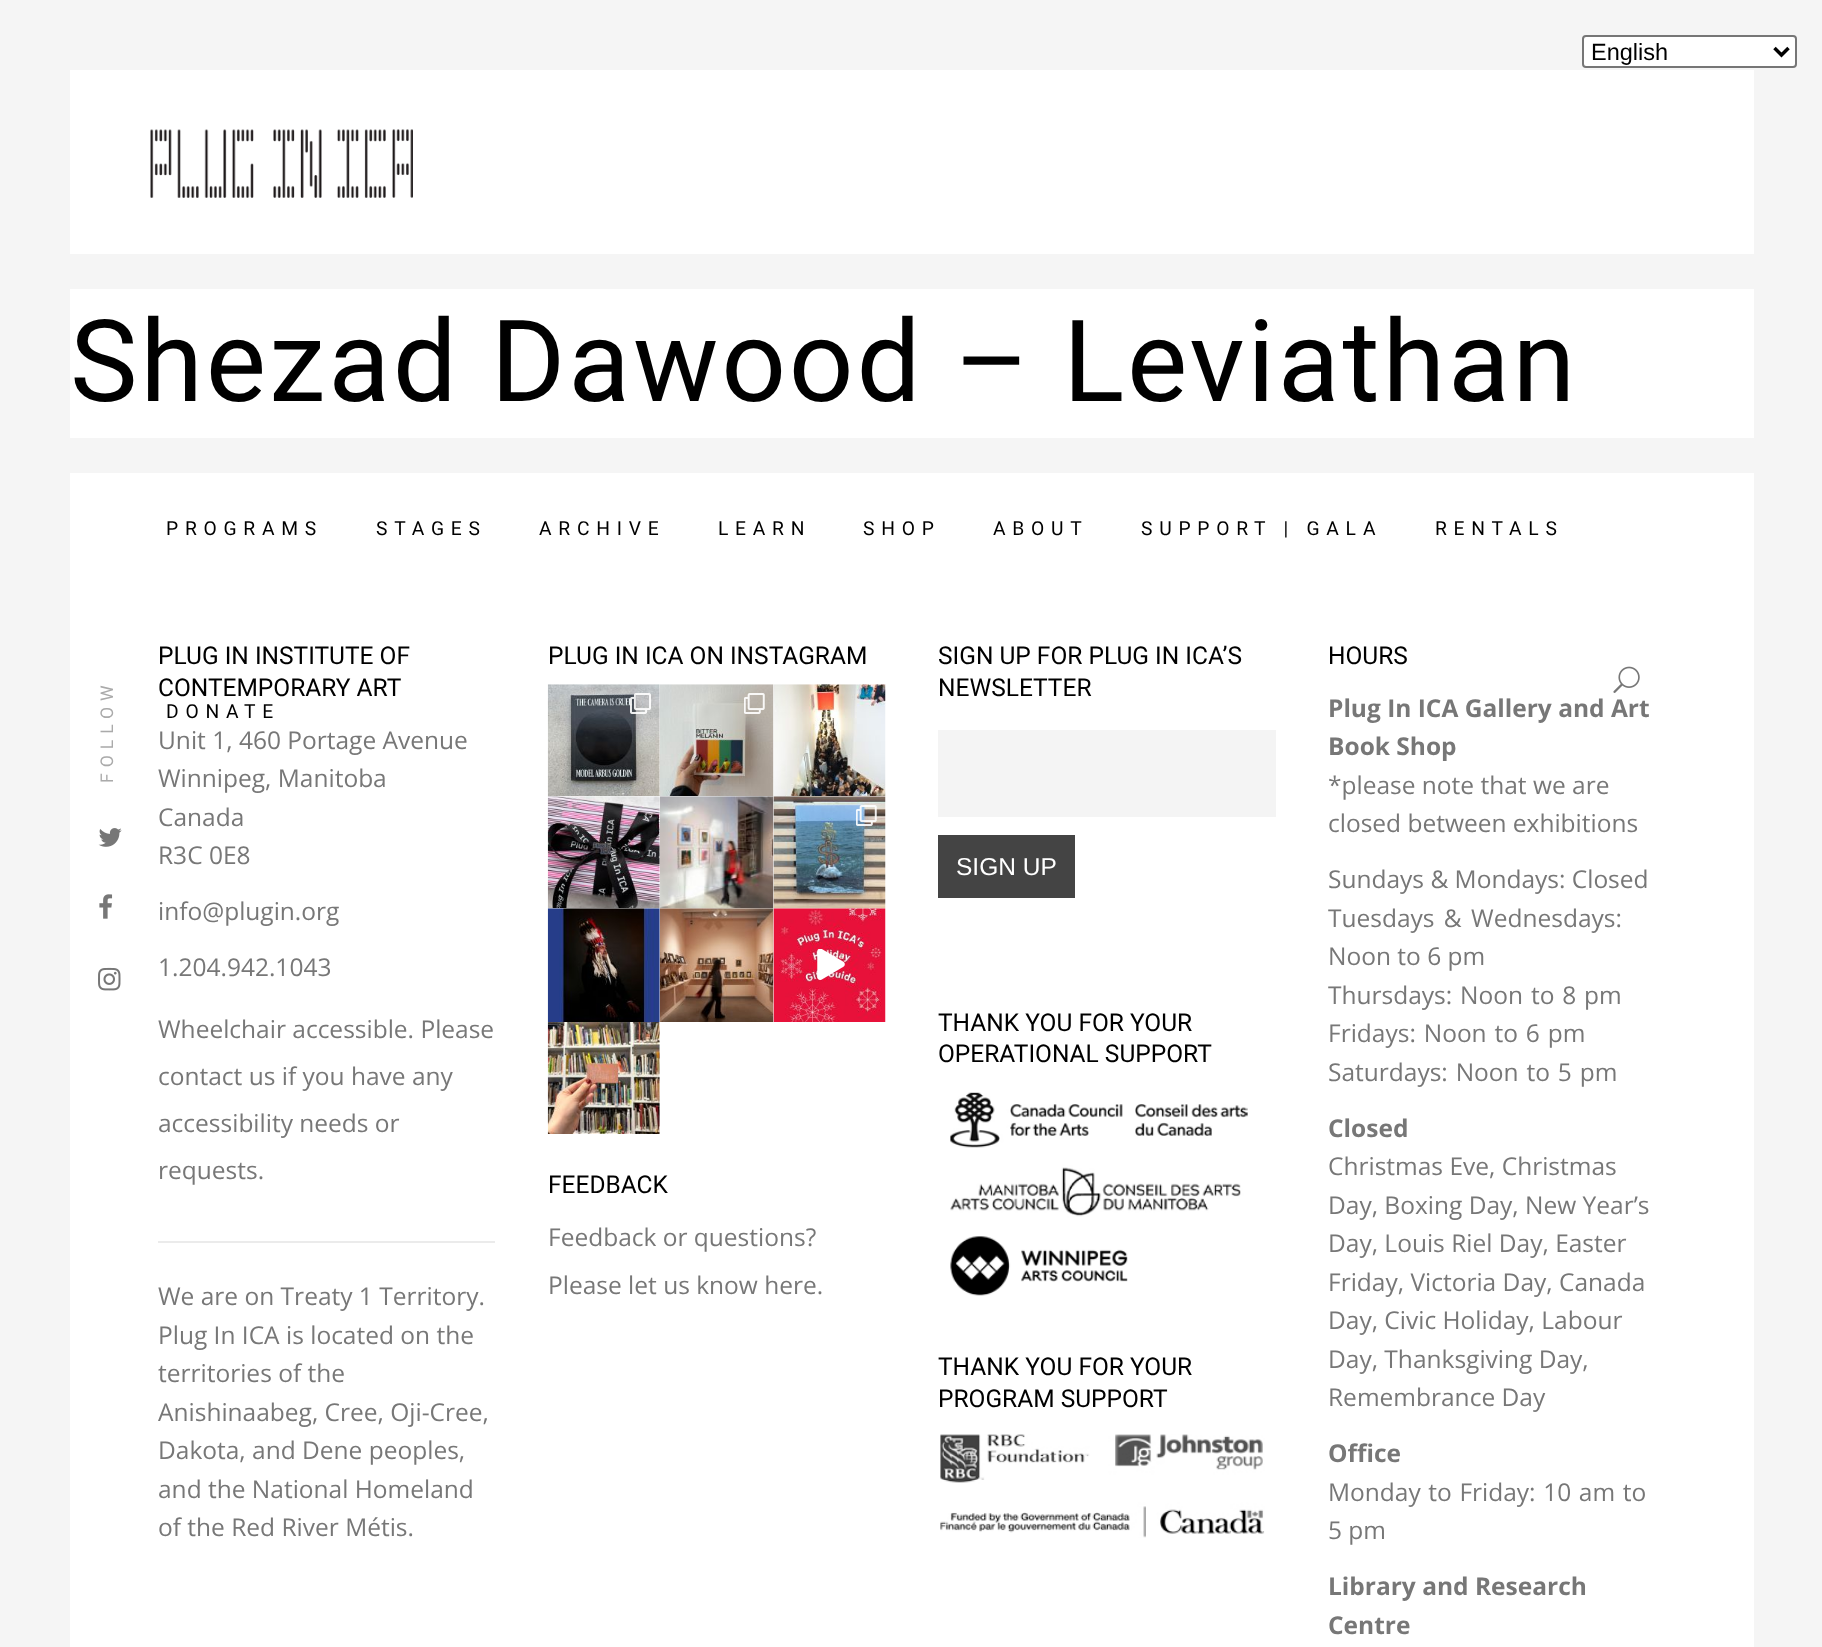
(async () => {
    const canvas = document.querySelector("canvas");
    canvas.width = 1822;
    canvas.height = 1647;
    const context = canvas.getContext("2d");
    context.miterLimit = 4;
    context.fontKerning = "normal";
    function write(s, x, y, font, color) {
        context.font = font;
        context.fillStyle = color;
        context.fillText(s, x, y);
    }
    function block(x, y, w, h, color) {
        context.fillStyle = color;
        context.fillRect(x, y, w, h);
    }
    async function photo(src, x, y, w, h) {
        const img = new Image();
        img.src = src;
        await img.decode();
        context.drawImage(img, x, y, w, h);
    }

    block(0, 0, 1822, 1647, "rgb(245, 245, 245)");
    context.fillStyle = "rgb(255, 255, 255)";
    context.beginPath();
    context.roundRect(1583, 36, 213, 31, 3);
    context.fill();
    context.strokeStyle = "rgb(118, 118, 118)";
    context.lineWidth = 2;
    context.stroke();
    context.beginPath();
    context.moveTo(1774.5, 48);
    context.lineTo(1781.5, 55);
    context.lineTo(1788.5, 48);
    context.strokeStyle = "rgb(0, 0, 0)";
    context.lineWidth = 3.5;
    context.stroke();
    write("English", 1591, 60, "23.5px Liberation Sans", "rgb(0, 0, 0)");
    block(70, 289, 1684, 149, "rgb(255, 255, 255)");
    context.letterSpacing = "2.8px";
    write("Shezad Dawood – Leviathan", 70, 401, "113.75px Roboto", "rgb(0, 0, 0)");
    block(70, 70, 1684, 184, "rgb(255, 255, 255)");
    await photo("media/1.png", 150, 129, 263, 69);
    block(70, 473, 1684, 1174, "rgb(255, 255, 255)");
    context.letterSpacing = "6.75px";
    write("PROGRAMS", 166, 535, "19.25px Roboto", "rgb(0, 0, 0)");
    write("STAGES", 376, 535, "19.25px Roboto", "rgb(0, 0, 0)");
    write("ARCHIVE", 539, 535, "19.25px Roboto", "rgb(0, 0, 0)");
    write("LEARN", 718, 535, "19.25px Roboto", "rgb(0, 0, 0)");
    write("SHOP", 863, 535, "19.25px Roboto", "rgb(0, 0, 0)");
    write("ABOUT", 993, 535, "19.25px Roboto", "rgb(0, 0, 0)");
    write("SUPPORT | GALA", 1141, 535, "19.25px Roboto", "rgb(0, 0, 0)");
    write("RENTALS", 1435, 535, "19.25px Roboto", "rgb(0, 0, 0)");
    write("DONATE", 166, 718, "19.25px Roboto", "rgb(0, 0, 0)");
    await photo("media/2.png", 1613, 666, 27, 27);
    context.letterSpacing = "6px";
    context.font = "17.5px Roboto";
    context.fillStyle = "rgb(170, 170, 170)";
    context.save();
    context.translate(113, 783);
    context.rotate(-90 * Math.PI / 180);
    context.fillText("FOLLOW", 0, 0);
    context.restore();
    await photo("media/3.png", 98, 828, 24, 19);
    await photo("media/4.png", 99, 894, 14, 25);
    await photo("media/5.png", 98, 967, 23, 24);
    context.letterSpacing = "0px";
    write("PLUG IN INSTITUTE OF", 158, 664, "24.5px Roboto", "rgb(0, 0, 0)");
    write("CONTEMPORARY ART", 158, 696, "24.5px Roboto", "rgb(0, 0, 0)");
    write("Unit 1, 460 Portage Avenue", 158, 749, "24.5px Open Sans", "rgb(119, 119, 119)");
    write("Winnipeg, Manitoba", 158, 787, "24.5px Open Sans", "rgb(119, 119, 119)");
    write("Canada", 158, 826, "24.5px Open Sans", "rgb(119, 119, 119)");
    write("R3C 0E8", 158, 864, "24.5px Open Sans", "rgb(119, 119, 119)");
    write("info@plugin.org", 158, 920, "24.5px Open Sans", "rgb(119, 119, 119)");
    write("1.204.942.1043", 158, 976, "24.5px Open Sans", "rgb(119, 119, 119)");
    write("Wheelchair accessible. Please", 158, 1038, "24.5px Open Sans", "rgb(119, 119, 119)");
    write("contact us if you have any", 158, 1085, "24.5px Open Sans", "rgb(119, 119, 119)");
    write("accessibility needs or", 158, 1132, "24.5px Open Sans", "rgb(119, 119, 119)");
    write("requests.", 158, 1179, "24.5px Open Sans", "rgb(119, 119, 119)");
    block(158, 1241, 337, 2, "rgb(235, 235, 235)");
    write("We are on Treaty 1 Territory.", 158, 1305, "24.5px Open Sans", "rgb(119, 119, 119)");
    write("Plug In ICA is located on the", 158, 1344, "24.5px Open Sans", "rgb(119, 119, 119)");
    write("territories of the", 158, 1382, "24.5px Open Sans", "rgb(119, 119, 119)");
    write("Anishinaabeg, Cree, Oji-Cree,", 158, 1421, "24.5px Open Sans", "rgb(119, 119, 119)");
    write("Dakota, and Dene peoples,", 158, 1459, "24.5px Open Sans", "rgb(119, 119, 119)");
    write("and the National Homeland", 158, 1498, "24.5px Open Sans", "rgb(119, 119, 119)");
    write("of the Red River Métis.", 158, 1536, "24.5px Open Sans", "rgb(119, 119, 119)");
    write("PLUG IN ICA ON INSTAGRAM", 548, 664, "24.5px Roboto", "rgb(0, 0, 0)");
    await photo("media/6.png", 547, 684, 113, 113);
    await photo("media/7.png", 630, 693, 21, 21);
    await photo("media/8.png", 660, 684, 114, 113);
    await photo("media/9.png", 744, 693, 21, 21);
    await photo("media/10.png", 773, 684, 113, 113);
    await photo("media/11.png", 547, 796, 113, 113);
    await photo("media/12.png", 659, 796, 115, 113);
    await photo("media/13.png", 773, 796, 113, 113);
    await photo("media/14.png", 856, 805, 21, 21);
    await photo("media/15.png", 547, 908, 113, 114);
    await photo("media/16.png", 659, 908, 115, 114);
    await photo("media/17.png", 773, 908, 113, 114);
    await photo("media/18.png", 817, 949, 28, 31);
    await photo("media/19.png", 547, 1022, 113, 112);
    write("FEEDBACK", 548, 1193, "24.5px Roboto", "rgb(0, 0, 0)");
    write("Feedback or questions?", 548, 1246, "24.5px Open Sans", "rgb(119, 119, 119)");
    write("Please let us know here.", 548, 1294, "24.5px Open Sans", "rgb(119, 119, 119)");
    write("SIGN UP FOR PLUG IN ICA’S", 938, 664, "24.5px Roboto", "rgb(0, 0, 0)");
    write("NEWSLETTER", 938, 696, "24.5px Roboto", "rgb(0, 0, 0)");
    block(938, 730, 338, 87, "rgb(244, 244, 244)");
    block(938, 835, 137, 63, "rgb(68, 68, 68)");
    write("SIGN UP", 956, 875, "24.5px Liberation Sans", "rgb(255, 255, 255)");
    write("THANK YOU FOR YOUR", 938, 1031, "24.5px Roboto", "rgb(0, 0, 0)");
    write("OPERATIONAL SUPPORT", 938, 1062, "24.5px Roboto", "rgb(0, 0, 0)");
    await photo("media/20.png", 950, 1092, 298, 204);
    write("THANK YOU FOR YOUR", 938, 1375, "24.5px Roboto", "rgb(0, 0, 0)");
    write("PROGRAM SUPPORT", 938, 1407, "24.5px Roboto", "rgb(0, 0, 0)");
    await photo("media/21.png", 940, 1434, 325, 104);
    write("HOURS", 1328, 664, "24.5px Roboto", "rgb(0, 0, 0)");
    write("Plug In ICA Gallery and Art", 1328, 717, "bold 24.5px Open Sans", "rgb(119, 119, 119)");
    write("Book Shop", 1328, 755, "bold 24.5px Open Sans", "rgb(119, 119, 119)");
    write("*please note that we are", 1328, 794, "24.5px Open Sans", "rgb(119, 119, 119)");
    write("closed between exhibitions", 1328, 832, "24.5px Open Sans", "rgb(119, 119, 119)");
    write("Sundays & Mondays: Closed", 1328, 888, "24.5px Open Sans", "rgb(119, 119, 119)");
    context.wordSpacing = "3px";
    write("Tuesdays & Wednesdays:", 1328, 927, "24.5px Open Sans", "rgb(119, 119, 119)");
    context.wordSpacing = "0px";
    write("Noon to 6 pm", 1328, 965, "24.5px Open Sans", "rgb(119, 119, 119)");
    context.wordSpacing = "1.5px";
    write("Thursdays: Noon to 8 pm", 1328, 1004, "24.5px Open Sans", "rgb(119, 119, 119)");
    write("Fridays: Noon to 6 pm", 1328, 1042, "24.5px Open Sans", "rgb(119, 119, 119)");
    write("Saturdays: Noon to 5 pm", 1328, 1081, "24.5px Open Sans", "rgb(119, 119, 119)");
    context.wordSpacing = "0px";
    write("Closed", 1328, 1137, "bold 24.5px Open Sans", "rgb(119, 119, 119)");
    write("Christmas Eve, Christmas", 1328, 1175, "24.5px Open Sans", "rgb(119, 119, 119)");
    write("Day, Boxing Day, New Year’s", 1328, 1214, "24.5px Open Sans", "rgb(119, 119, 119)");
    write("Day, Louis Riel Day, Easter", 1328, 1252, "24.5px Open Sans", "rgb(119, 119, 119)");
    write("Friday, Victoria Day, Canada", 1328, 1291, "24.5px Open Sans", "rgb(119, 119, 119)");
    write("Day, Civic Holiday, Labour", 1328, 1329, "24.5px Open Sans", "rgb(119, 119, 119)");
    write("Day, Thanksgiving Day,", 1328, 1368, "24.5px Open Sans", "rgb(119, 119, 119)");
    write("Remembrance Day", 1328, 1406, "24.5px Open Sans", "rgb(119, 119, 119)");
    write("Office", 1328, 1462, "bold 24.5px Open Sans", "rgb(119, 119, 119)");
    context.wordSpacing = "1.25px";
    write("Monday to Friday: 10 am to", 1328, 1501, "24.5px Open Sans", "rgb(119, 119, 119)");
    context.wordSpacing = "0px";
    write("5 pm", 1328, 1539, "24.5px Open Sans", "rgb(119, 119, 119)");
    write("Library and Research", 1328, 1595, "bold 24.5px Open Sans", "rgb(119, 119, 119)");
    write("Centre", 1328, 1634, "bold 24.5px Open Sans", "rgb(119, 119, 119)");
})();
